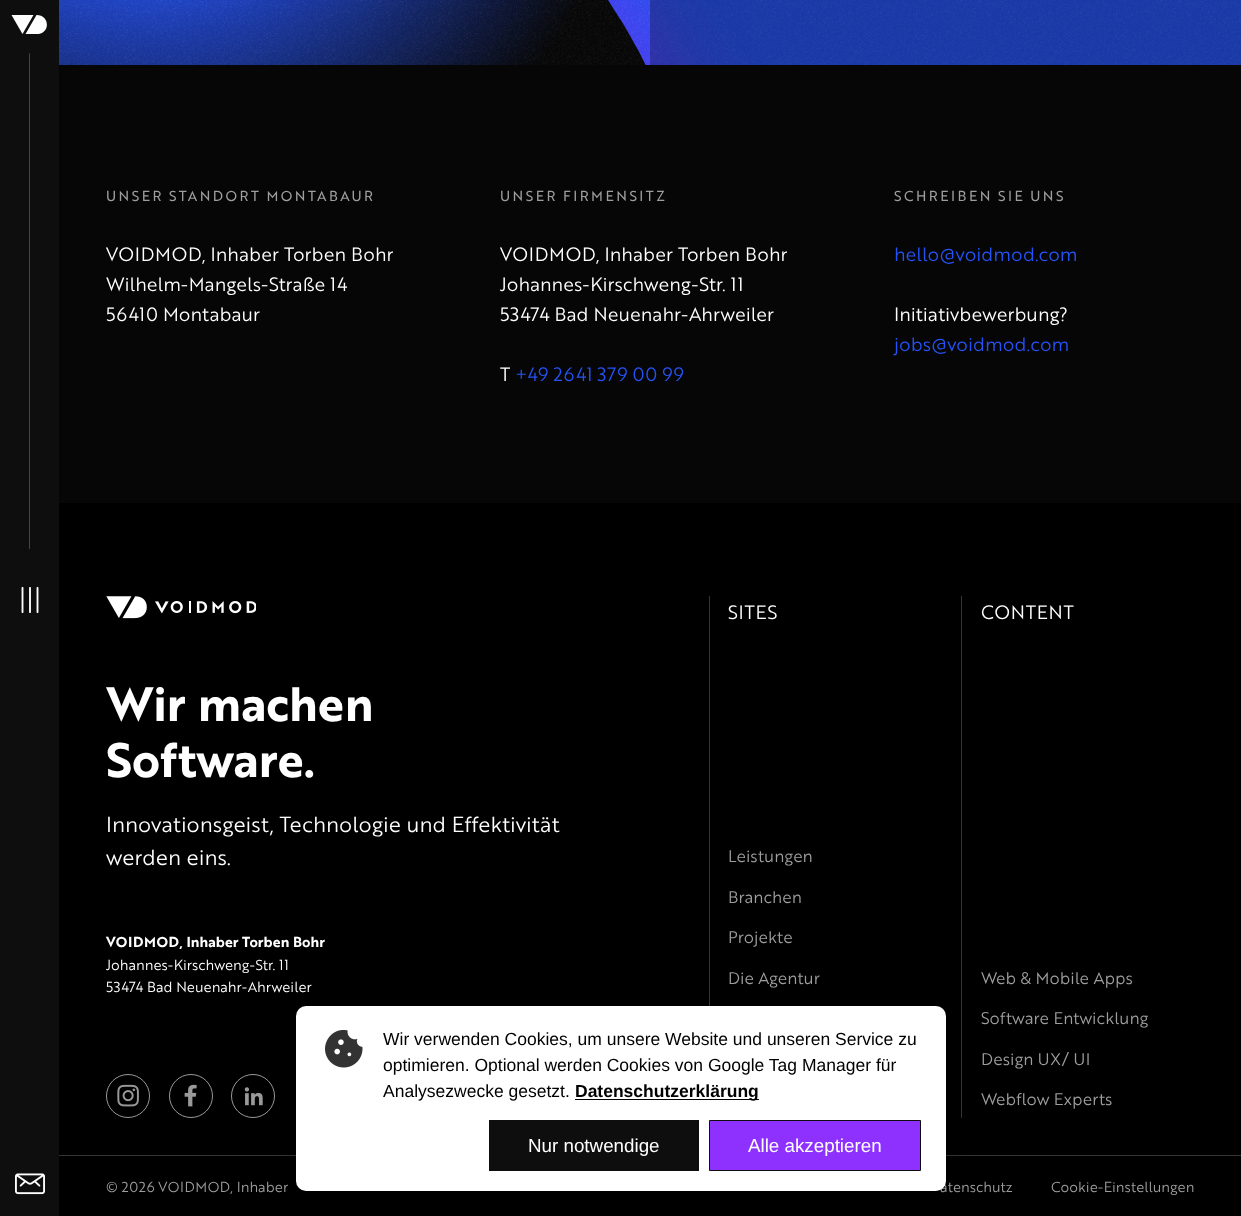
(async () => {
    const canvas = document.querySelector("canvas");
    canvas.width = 1241;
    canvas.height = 1216;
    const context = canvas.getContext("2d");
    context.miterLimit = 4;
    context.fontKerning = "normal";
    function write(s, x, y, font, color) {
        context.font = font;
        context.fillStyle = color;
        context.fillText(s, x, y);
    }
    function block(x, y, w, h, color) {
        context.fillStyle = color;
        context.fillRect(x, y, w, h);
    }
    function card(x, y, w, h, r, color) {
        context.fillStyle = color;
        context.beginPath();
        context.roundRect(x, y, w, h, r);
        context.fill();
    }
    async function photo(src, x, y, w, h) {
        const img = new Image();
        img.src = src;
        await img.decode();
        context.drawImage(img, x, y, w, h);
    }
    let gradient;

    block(0, 0, 1241, 1216, "rgb(37, 83, 248)");
    context.fillStyle = "rgba(213, 6, 255, 0.25)";
    context.filter = "blur(37.5px)";
    context.beginPath();
    context.roundRect(-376, -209, 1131, 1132, 565.5);
    context.fill();
    context.filter = "none";
    gradient = context.createRadialGradient(146, -245, 0, 146, -245, 1248);
    gradient.addColorStop(0, "rgb(143, 49, 254)");
    gradient.addColorStop(0.15, "rgb(37, 83, 248)");
    gradient.addColorStop(0.4, "rgb(6, 6, 6)");
    context.fillStyle = gradient;
    context.beginPath();
    context.arc(146, 313, 558, 0, Math.PI * 2);
    context.fill();
    block(0, 0, 59, 1216, "rgb(14, 14, 14)");
    context.fillStyle = "rgb(255, 255, 255)";
    context.beginPath();
    context.moveTo(33.5, 15);
    context.lineTo(22.5, 34);
    context.lineTo(11.5, 15);
    context.closePath();
    context.fill();
    context.save();
    context.beginPath();
    context.rect(11, 15, 37, 19);
    context.clip();
    context.beginPath();
    context.moveTo(25.5, 34);
    context.lineTo(36.5, 15);
    context.bezierCurveTo(48.5, 15, 50.5, 30, 40.5, 33.5);
    context.bezierCurveTo(36.5, 35, 30, 34, 25.5, 34);
    context.closePath();
    context.fill();
    context.restore();
    card(29, 53, 1, 496, 0.5, "rgb(68, 68, 68)");
    await photo("media/1.png", 21, 586, 18, 28);
    await photo("media/2.png", 15, 1173, 30, 22);
    await photo("media/3.png", 59, 0, 1182, 65);
    block(650, 0, 591, 65, "rgba(6, 6, 6, 0.3)");
    block(59, 65, 1182, 438, "rgb(6, 6, 6)");
    context.letterSpacing = "1.9px";
    write("UNSER STANDORT MONTABAUR", 106, 201, "14.1px 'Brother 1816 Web'", "rgb(158, 158, 158)");
    context.letterSpacing = "0px";
    write("VOIDMOD, Inhaber Torben Bohr", 106, 261, "18.8px 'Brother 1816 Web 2'", "rgb(255, 255, 255)");
    write("Wilhelm-Mangels-Straße 14", 106, 291, "18.8px 'Brother 1816 Web 2'", "rgb(255, 255, 255)");
    write("56410 Montabaur", 106, 321, "18.8px 'Brother 1816 Web 2'", "rgb(255, 255, 255)");
    context.letterSpacing = "1.9px";
    write("UNSER FIRMENSITZ", 500, 201, "14.1px 'Brother 1816 Web'", "rgb(158, 158, 158)");
    context.letterSpacing = "0px";
    write("VOIDMOD, Inhaber Torben Bohr", 500, 261, "18.8px 'Brother 1816 Web 2'", "rgb(255, 255, 255)");
    write("Johannes-Kirschweng-Str. 11", 500, 291, "18.8px 'Brother 1816 Web 2'", "rgb(255, 255, 255)");
    write("53474 Bad Neuenahr-Ahrweiler", 500, 321, "18.8px 'Brother 1816 Web 2'", "rgb(255, 255, 255)");
    write("T", 500, 381, "18.8px 'Brother 1816 Web 2'", "rgb(255, 255, 255)");
    write("+49 2641 379 00 99", 515, 381, "18.8px 'Brother 1816 Web 2'", "rgb(37, 83, 248)");
    context.letterSpacing = "1.9px";
    write("SCHREIBEN SIE UNS", 894, 201, "14.1px 'Brother 1816 Web'", "rgb(158, 158, 158)");
    context.letterSpacing = "0px";
    write("hello@voidmod.com", 894, 261, "18.8px 'Brother 1816 Web 2'", "rgb(37, 83, 248)");
    write("Initiativbewerbung?", 894, 321, "18.8px 'Brother 1816 Web 2'", "rgb(255, 255, 255)");
    write("jobs@voidmod.com", 894, 351, "18.8px 'Brother 1816 Web 2'", "rgb(37, 83, 248)");
    block(59, 503, 1182, 713, "rgb(0, 0, 0)");
    await photo("media/4.png", 106, 596, 150, 23);
    write("Wir machen", 106, 721, "bold 47px 'Brother 1816 Web'", "rgb(255, 255, 255)");
    write("Software.", 106, 777, "bold 47px 'Brother 1816 Web'", "rgb(255, 255, 255)");
    write("Innovationsgeist, Technologie und Effektivität", 106, 832, "21.2px 'Brother 1816 Web 2'", "rgb(255, 255, 255)");
    write("werden eins.", 106, 865, "21.2px 'Brother 1816 Web 2'", "rgb(255, 255, 255)");
    write("VOIDMOD, Inhaber Torben Bohr", 106, 947, "bold 14.1px 'Brother 1816 Web'", "rgb(255, 255, 255)");
    write("Johannes-Kirschweng-Str. 11", 106, 970, "14.1px 'Brother 1816 Web 2'", "rgb(255, 255, 255)");
    write("53474 Bad Neuenahr-Ahrweiler", 106, 992, "14.1px 'Brother 1816 Web 2'", "rgb(255, 255, 255)");
    context.beginPath();
    context.arc(128, 1096, 21.5, 0, Math.PI * 2);
    context.strokeStyle = "rgb(153, 153, 153)";
    context.stroke();
    await photo("media/5.png", 117, 1084, 22, 23);
    context.beginPath();
    context.arc(191, 1096, 21.5, 0, Math.PI * 2);
    context.stroke();
    await photo("media/6.png", 184, 1084, 13, 23);
    context.beginPath();
    context.arc(253, 1096, 21.5, 0, Math.PI * 2);
    context.stroke();
    await photo("media/7.png", 244, 1087, 19, 19);
    block(709, 596, 1, 410, "rgb(51, 51, 51)");
    write("SITES", 728, 619, "18.8px 'Brother 1816 Web 2'", "rgb(255, 255, 255)");
    write("Leistungen", 728, 862, "16.5px 'Brother 1816 Web 2'", "rgb(158, 158, 158)");
    write("Branchen", 728, 903, "16.5px 'Brother 1816 Web 2'", "rgb(158, 158, 158)");
    write("Projekte", 728, 943, "16.5px 'Brother 1816 Web 2'", "rgb(158, 158, 158)");
    write("Die Agentur", 728, 984, "16.5px 'Brother 1816 Web 2'", "rgb(158, 158, 158)");
    block(961, 596, 1, 522, "rgb(51, 51, 51)");
    write("CONTENT", 981, 619, "18.8px 'Brother 1816 Web 2'", "rgb(255, 255, 255)");
    write("Web & Mobile Apps", 981, 984, "16.5px 'Brother 1816 Web 2'", "rgb(158, 158, 158)");
    write("Software Entwicklung", 981, 1024, "16.5px 'Brother 1816 Web 2'", "rgb(158, 158, 158)");
    write("Design UX/ UI", 981, 1065, "16.5px 'Brother 1816 Web 2'", "rgb(158, 158, 158)");
    write("Webflow Experts", 981, 1105, "16.5px 'Brother 1816 Web 2'", "rgb(158, 158, 158)");
    block(59, 1155, 1182, 1, "rgb(51, 51, 51)");
    context.fillStyle = "rgba(0, 0, 0, 0.15)";
    context.filter = "blur(7.5px)";
    context.beginPath();
    context.roundRect(296, 1009, 650, 185, 10);
    context.fill();
    context.filter = "none";
    write("atenschutz", 940, 1192, "14.1px 'Brother 1816 Web 2'", "rgb(158, 158, 158)");
    card(296, 1006, 650, 185, 10, "rgb(255, 255, 255)");
    await photo("media/8.png", 325, 1030, 38, 38);
    write("Wir verwenden Cookies, um unsere Website und unseren Service zu", 383, 1045, "17.5px Liberation Sans", "rgb(0, 0, 0)");
    write("optimieren. Optional werden Cookies von Google Tag Manager für", 383, 1071, "17.5px Liberation Sans", "rgb(0, 0, 0)");
    write("Analysezwecke gesetzt.", 383, 1097, "17.5px Liberation Sans", "rgb(0, 0, 0)");
    block(575, 1099, 184, 1, "rgb(0, 0, 0)");
    write("Datenschutzerklärung", 575, 1097, "bold 17.5px Liberation Sans", "rgb(0, 0, 0)");
    block(489, 1120, 210, 51, "rgb(14, 14, 14)");
    write("Nur notwendige", 528, 1152, "18.8px Liberation Sans", "rgb(255, 255, 255)");
    context.fillStyle = "rgb(143, 49, 254)";
    context.beginPath();
    context.rect(709.5, 1120.5, 211, 50);
    context.fill();
    context.strokeStyle = "rgb(14, 14, 14)";
    context.stroke();
    write("Alle akzeptieren", 748, 1152, "18.8px Liberation Sans", "rgb(255, 255, 255)");
    write("© 2026 VOIDMOD, Inhaber", 106, 1192, "14.1px 'Brother 1816 Web 2'", "rgb(158, 158, 158)");
    write("Cookie-Einstellungen", 1051, 1192, "14.1px 'Brother 1816 Web 2'", "rgb(158, 158, 158)");
})();
